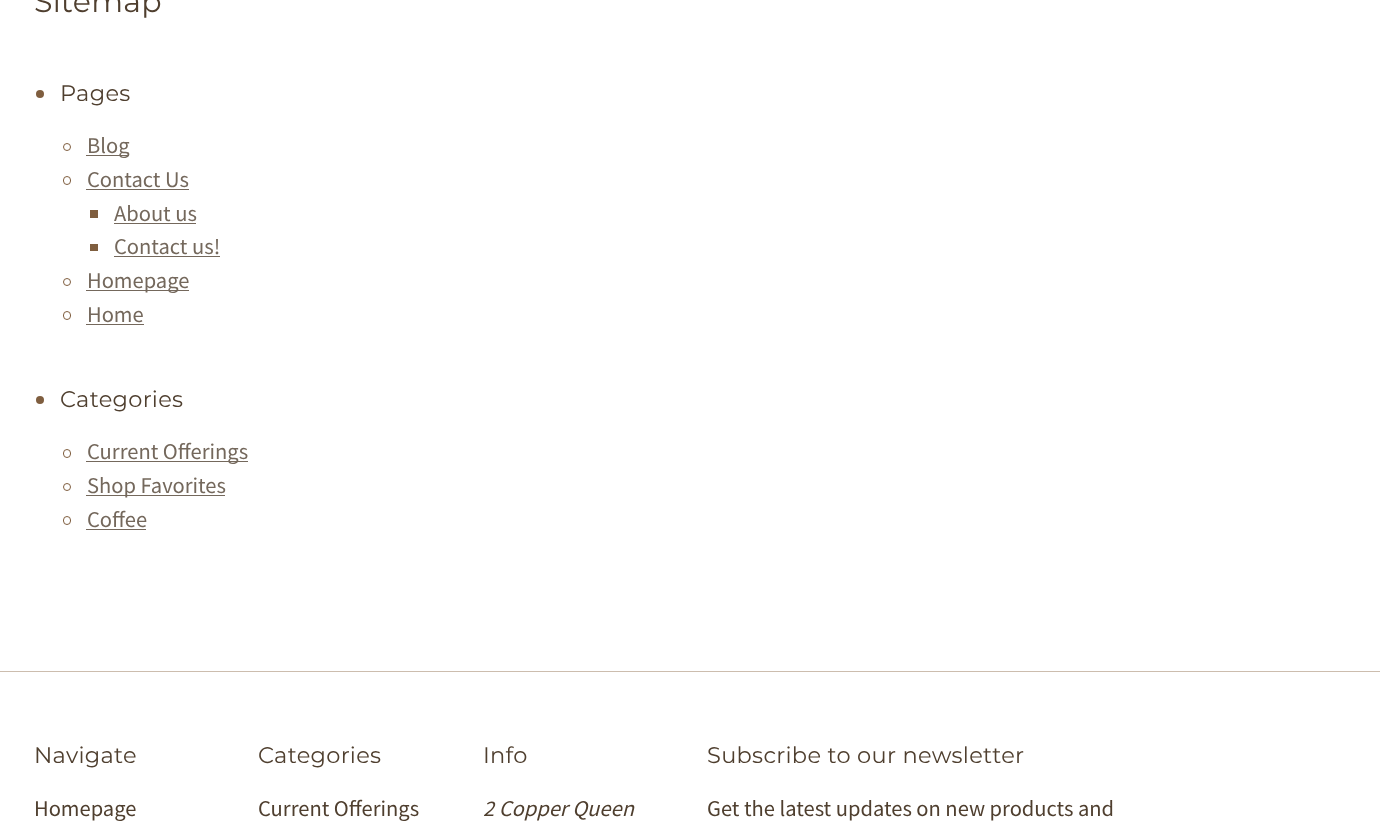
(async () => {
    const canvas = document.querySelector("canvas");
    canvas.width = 1380;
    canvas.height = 839;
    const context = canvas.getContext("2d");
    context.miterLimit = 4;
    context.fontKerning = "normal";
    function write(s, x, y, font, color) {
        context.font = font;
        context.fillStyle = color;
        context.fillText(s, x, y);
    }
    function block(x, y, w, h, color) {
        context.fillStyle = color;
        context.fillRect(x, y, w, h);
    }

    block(0, 0, 1380, 839, "rgb(255, 255, 255)");
    context.letterSpacing = "0.3px";
    write("Sitemap", 34, 12, "100 30px Montserrat", "rgb(79, 63, 47)");
    context.fillStyle = "rgb(127, 94, 63)";
    context.beginPath();
    context.arc(40, 94, 4, 0, Math.PI * 2);
    context.fill();
    write("Pages", 60, 101, "100 22.5px Montserrat", "rgb(79, 63, 47)");
    context.beginPath();
    context.arc(67, 147, 3.5, 0, Math.PI * 2);
    context.strokeStyle = "rgb(127, 94, 63)";
    context.stroke();
    block(86, 155, 43, 1, "rgb(116, 104, 92)");
    context.letterSpacing = "0px";
    write("Blog", 87, 153, "22.5px Source Sans Pro", "rgb(116, 104, 92)");
    context.beginPath();
    context.roundRect(63.5, 176.5, 7, 8, 3.5);
    context.stroke();
    write("Contact Us", 87, 187, "22.5px Source Sans Pro", "rgb(116, 104, 92)");
    block(86, 189, 103, 1, "rgb(116, 104, 92)");
    block(90, 210, 8, 8, "rgb(127, 94, 63)");
    write("About us", 114, 221, "22.5px Source Sans Pro", "rgb(116, 104, 92)");
    block(114, 223, 82, 1, "rgb(116, 104, 92)");
    block(90, 244, 8, 7, "rgb(127, 94, 63)");
    write("Contact us!", 114, 254, "22.5px Source Sans Pro", "rgb(116, 104, 92)");
    block(114, 256, 106, 1, "rgb(116, 104, 92)");
    context.beginPath();
    context.arc(67, 282, 3.5, 0, Math.PI * 2);
    context.stroke();
    block(86, 290, 103, 1, "rgb(116, 104, 92)");
    write("Homepage", 87, 288, "22.5px Source Sans Pro", "rgb(116, 104, 92)");
    context.beginPath();
    context.roundRect(63.5, 311.5, 7, 8, 3.5);
    context.stroke();
    write("Home", 87, 322, "22.5px Source Sans Pro", "rgb(116, 104, 92)");
    block(86, 324, 58, 1, "rgb(116, 104, 92)");
    context.fillStyle = "rgb(127, 94, 63)";
    context.beginPath();
    context.arc(40, 400, 4, 0, Math.PI * 2);
    context.fill();
    context.letterSpacing = "0.3px";
    write("Categories", 60, 407, "100 22.5px Montserrat", "rgb(79, 63, 47)");
    context.beginPath();
    context.roundRect(63.5, 449.5, 7, 8, 3.5);
    context.stroke();
    block(86, 461, 162, 1, "rgb(116, 104, 92)");
    context.letterSpacing = "0px";
    write("Current Offerings", 87, 459, "22.5px Source Sans Pro", "rgb(116, 104, 92)");
    context.beginPath();
    context.arc(67, 487, 3.5, 0, Math.PI * 2);
    context.stroke();
    block(86, 495, 139, 1, "rgb(116, 104, 92)");
    write("Shop Favorites", 87, 493, "22.5px Source Sans Pro", "rgb(116, 104, 92)");
    context.beginPath();
    context.roundRect(63.5, 516.5, 7, 8, 3.5);
    context.stroke();
    write("Coffee", 87, 527, "22.5px Source Sans Pro", "rgb(116, 104, 92)");
    block(86, 529, 60, 1, "rgb(116, 104, 92)");
    block(0, 671, 1380, 1, "rgb(204, 189, 174)");
    context.letterSpacing = "0.3px";
    write("Navigate", 34, 763, "100 22.5px Montserrat", "rgb(79, 63, 47)");
    context.letterSpacing = "0px";
    write("Homepage", 34, 816, "22.5px Source Sans Pro", "rgb(79, 63, 47)");
    context.letterSpacing = "0.3px";
    write("Categories", 258, 763, "100 22.5px Montserrat", "rgb(79, 63, 47)");
    context.letterSpacing = "0px";
    write("Current Offerings", 258, 816, "22.5px Source Sans Pro", "rgb(79, 63, 47)");
    context.letterSpacing = "0.3px";
    write("Info", 483, 763, "100 22.5px Montserrat", "rgb(79, 63, 47)");
    context.letterSpacing = "0px";
    write("2 Copper Queen", 483, 816, "italic 22.5px Source Sans Pro", "rgb(79, 63, 47)");
    context.letterSpacing = "0.3px";
    write("Subscribe to our newsletter", 707, 763, "100 22.5px Montserrat", "rgb(79, 63, 47)");
    context.letterSpacing = "0px";
    write("Get the latest updates on new products and", 707, 816, "22.5px Source Sans Pro", "rgb(79, 63, 47)");
})();
